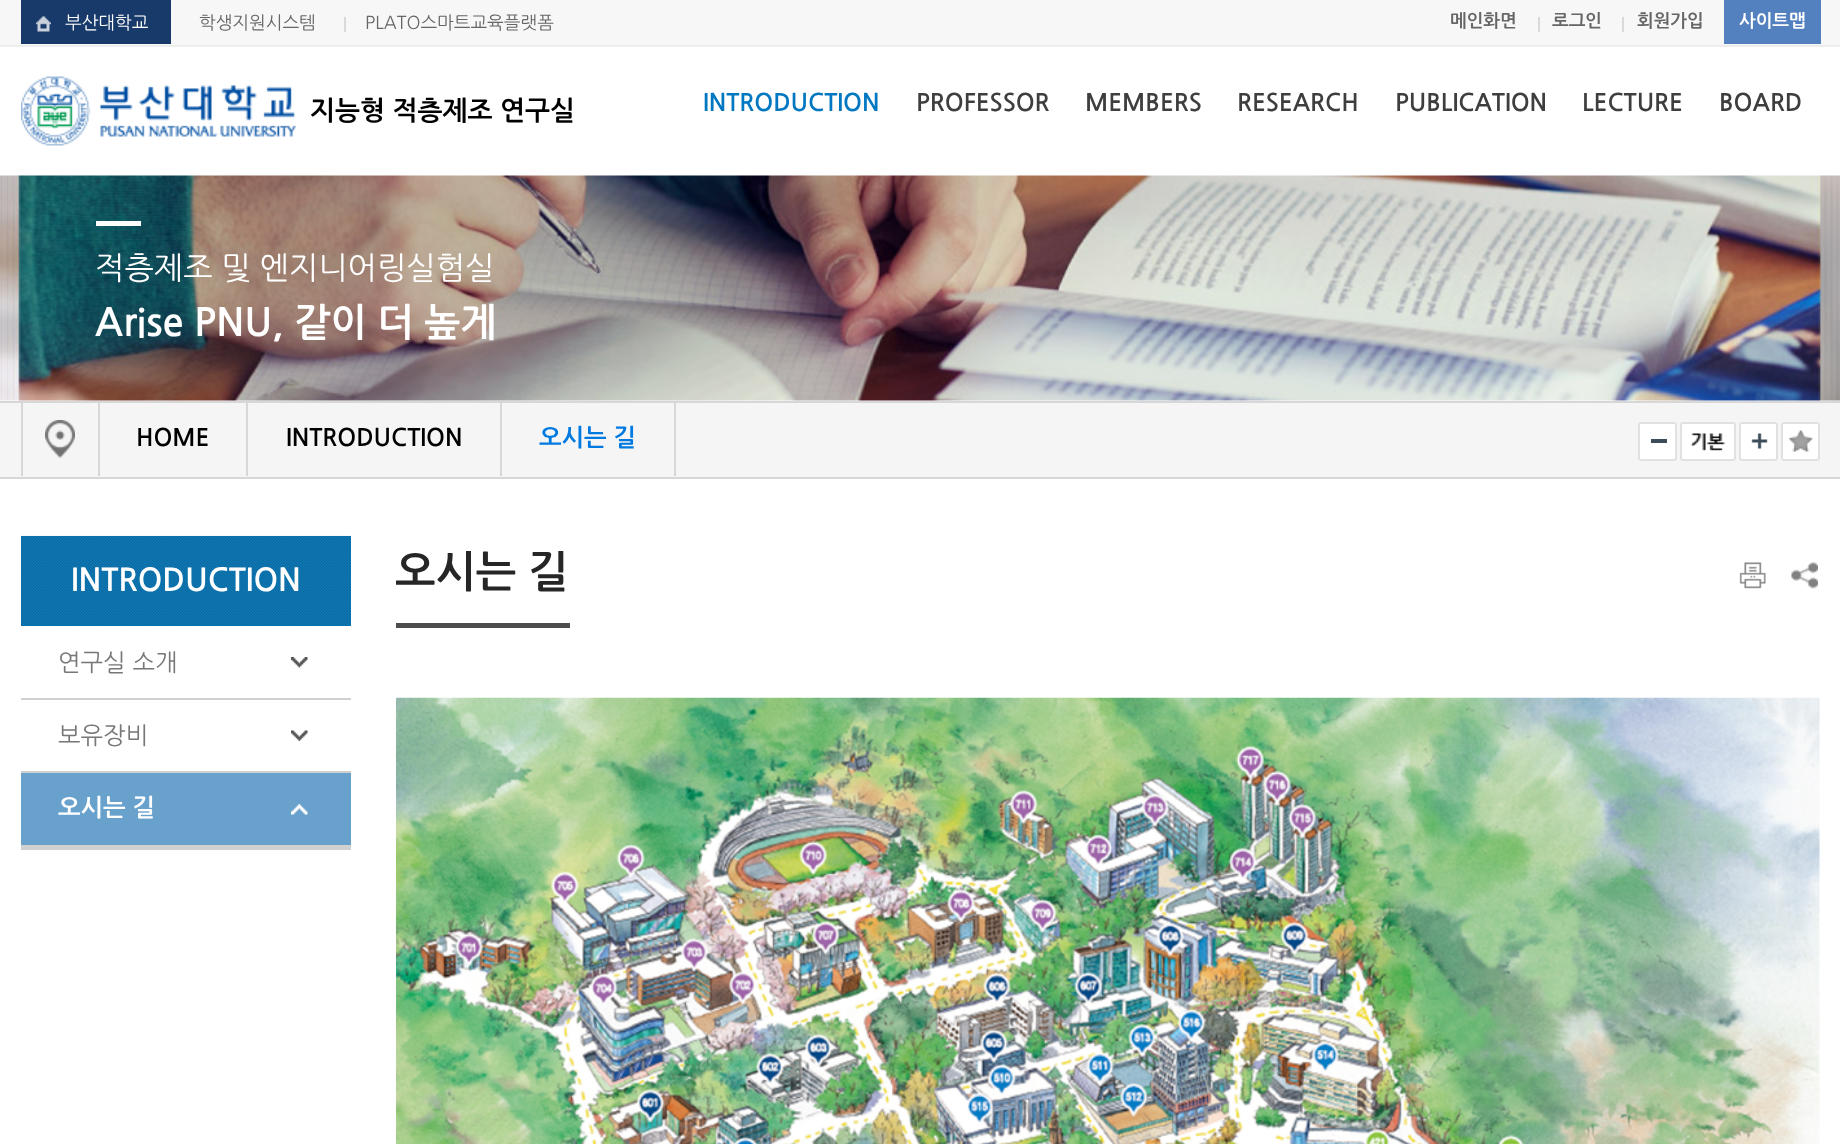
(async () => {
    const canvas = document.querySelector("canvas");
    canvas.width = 1840;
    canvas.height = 1144;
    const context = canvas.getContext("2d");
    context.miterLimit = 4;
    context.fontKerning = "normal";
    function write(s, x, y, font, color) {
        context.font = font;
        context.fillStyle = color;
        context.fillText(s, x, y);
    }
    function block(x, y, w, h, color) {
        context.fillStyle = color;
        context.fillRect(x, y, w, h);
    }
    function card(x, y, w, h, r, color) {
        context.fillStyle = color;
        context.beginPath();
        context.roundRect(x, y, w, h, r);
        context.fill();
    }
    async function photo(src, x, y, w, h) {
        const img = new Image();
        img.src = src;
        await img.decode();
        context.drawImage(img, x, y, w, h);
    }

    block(0, 0, 1840, 1144, "rgb(255, 255, 255)");
    block(0, 0, 1840, 45, "rgb(247, 247, 247)");
    block(0, 45, 1840, 2, "rgb(237, 237, 237)");
    block(21, 0, 150, 44, "rgb(24, 58, 106)");
    await photo("media/1.png", 36, 16, 15, 16);
    write("부산대학교", 65, 29, "17.75px NanumGothic", "rgb(255, 255, 255)");
    write("학생지원시스템", 199, 29, "17.75px NanumGothic", "rgb(102, 102, 102)");
    block(344, 17, 2, 15, "rgb(217, 217, 217)");
    write("PLATO스마트교육플랫폼", 365, 29, "17.75px NanumGothic", "rgb(102, 102, 102)");
    write("메인화면", 1450, 27, "bold 17.75px NanumGothic", "rgb(102, 102, 102)");
    block(1538, 17, 2, 15, "rgb(217, 217, 217)");
    write("로그인", 1552, 27, "bold 17.75px NanumGothic", "rgb(102, 102, 102)");
    block(1622, 17, 2, 15, "rgb(217, 217, 217)");
    write("회원가입", 1637, 27, "bold 17.75px NanumGothic", "rgb(102, 102, 102)");
    block(1724, 0, 97, 44, "rgb(83, 128, 190)");
    write("사이트맵", 1739, 27, "bold 17.75px NanumGothic", "rgb(255, 255, 255)");
    write("INTRODUCTION", 703, 111, "bold 24px NanumGothic", "rgb(0, 119, 193)");
    write("PROFESSOR", 916, 111, "bold 24px NanumGothic", "rgb(62, 62, 62)");
    write("MEMBERS", 1085, 111, "bold 24px NanumGothic", "rgb(62, 62, 62)");
    write("RESEARCH", 1237, 111, "bold 24px NanumGothic", "rgb(62, 62, 62)");
    write("PUBLICATION", 1395, 111, "bold 24px NanumGothic", "rgb(62, 62, 62)");
    write("LECTURE", 1582, 111, "bold 24px NanumGothic", "rgb(62, 62, 62)");
    write("BOARD", 1719, 111, "bold 24px NanumGothic", "rgb(62, 62, 62)");
    await photo("media/2.png", 21, 76, 275, 70);
    write("지능형 적층제조 연구실", 310, 120, "bold 26.6px NanumGothic", "rgb(0, 0, 0)");
    await photo("media/3.png", 0, 175, 1840, 226);
    block(96, 221, 45, 5, "rgb(255, 255, 255)");
    write("적층제조 및 엔지니어링실험실", 95, 279, "31.25px NanumGothic", "rgb(255, 255, 255)");
    write("Arise PNU, 같이 더 높게", 95, 336, "bold 38.4px NanumGothic", "rgb(255, 255, 255)");
    block(0, 403, 1840, 74, "rgb(245, 245, 245)");
    block(0, 401, 1840, 2, "rgb(215, 215, 215)");
    block(0, 477, 1840, 2, "rgb(215, 215, 215)");
    await photo("media/4.png", 45, 420, 30, 38);
    block(674, 401, 2, 75, "rgb(215, 215, 215)");
    block(21, 401, 2, 75, "rgb(215, 215, 215)");
    block(98, 401, 2, 75, "rgb(215, 215, 215)");
    write("HOME", 136, 446, "bold 24px NanumGothic", "rgb(0, 0, 0)");
    block(246, 401, 2, 75, "rgb(215, 215, 215)");
    write("INTRODUCTION", 286, 446, "bold 24px NanumGothic", "rgb(0, 0, 0)");
    block(500, 401, 2, 75, "rgb(215, 215, 215)");
    write("오시는 길", 539, 446, "bold 24px NanumGothic", "rgb(0, 122, 225)");
    card(1638, 422, 39, 39, 3, "rgb(255, 255, 255)");
    block(1651, 439, 16, 4, "rgb(59, 76, 91)");
    context.beginPath();
    context.roundRect(1639, 423, 37, 37, 2);
    context.strokeStyle = "rgb(225, 225, 225)";
    context.lineWidth = 2;
    context.stroke();
    card(1680, 422, 56, 39, 3, "rgb(255, 255, 255)");
    await photo("media/5.png", 1690, 433, 36, 18);
    context.beginPath();
    context.roundRect(1681, 423, 54, 37, 2);
    context.stroke();
    card(1739, 422, 39, 39, 3, "rgb(255, 255, 255)");
    await photo("media/6.png", 1751, 433, 17, 16);
    context.beginPath();
    context.roundRect(1740, 423, 37, 37, 2);
    context.stroke();
    card(1781, 422, 39, 39, 3, "rgb(255, 255, 255)");
    await photo("media/7.png", 1789, 430, 24, 22);
    context.beginPath();
    context.roundRect(1782, 423, 37, 37, 2);
    context.stroke();
    await photo("media/8.png", 1739, 562, 27, 27);
    await photo("media/9.png", 1791, 562, 27, 27);
    block(21, 536, 330, 90, "rgb(0, 113, 178)");
    await photo("media/10.png", 21, 535, 330, 91);
    write("INTRODUCTION", 71, 591, "bold 31.25px NanumGothic", "rgb(255, 255, 255)");
    block(21, 845, 330, 5, "rgb(208, 208, 208)");
    await photo("media/11.png", 291, 657, 17, 11);
    write("연구실 소개", 58, 671, "24px NanumGothic", "rgb(119, 119, 119)");
    await photo("media/12.png", 291, 730, 17, 11);
    block(21, 698, 330, 2, "rgb(208, 208, 208)");
    write("보유장비", 58, 744, "24px NanumGothic", "rgb(119, 119, 119)");
    block(21, 773, 330, 72, "rgb(105, 161, 205)");
    await photo("media/13.png", 291, 804, 17, 11);
    block(21, 771, 330, 2, "rgb(208, 208, 208)");
    write("오시는 길", 58, 816, "bold 24px NanumGothic", "rgb(255, 255, 255)");
    block(396, 623, 174, 5, "rgb(77, 77, 77)");
    context.save();
    context.beginPath();
    context.rect(396, 551, 1425, 102);
    context.clip();
    write("오시는 길", 395, 587, "bold 43px NanumGothic", "rgb(38, 38, 38)");
    context.restore();
    await photo("media/14.png", 396, 697, 1424, 447);
})();
